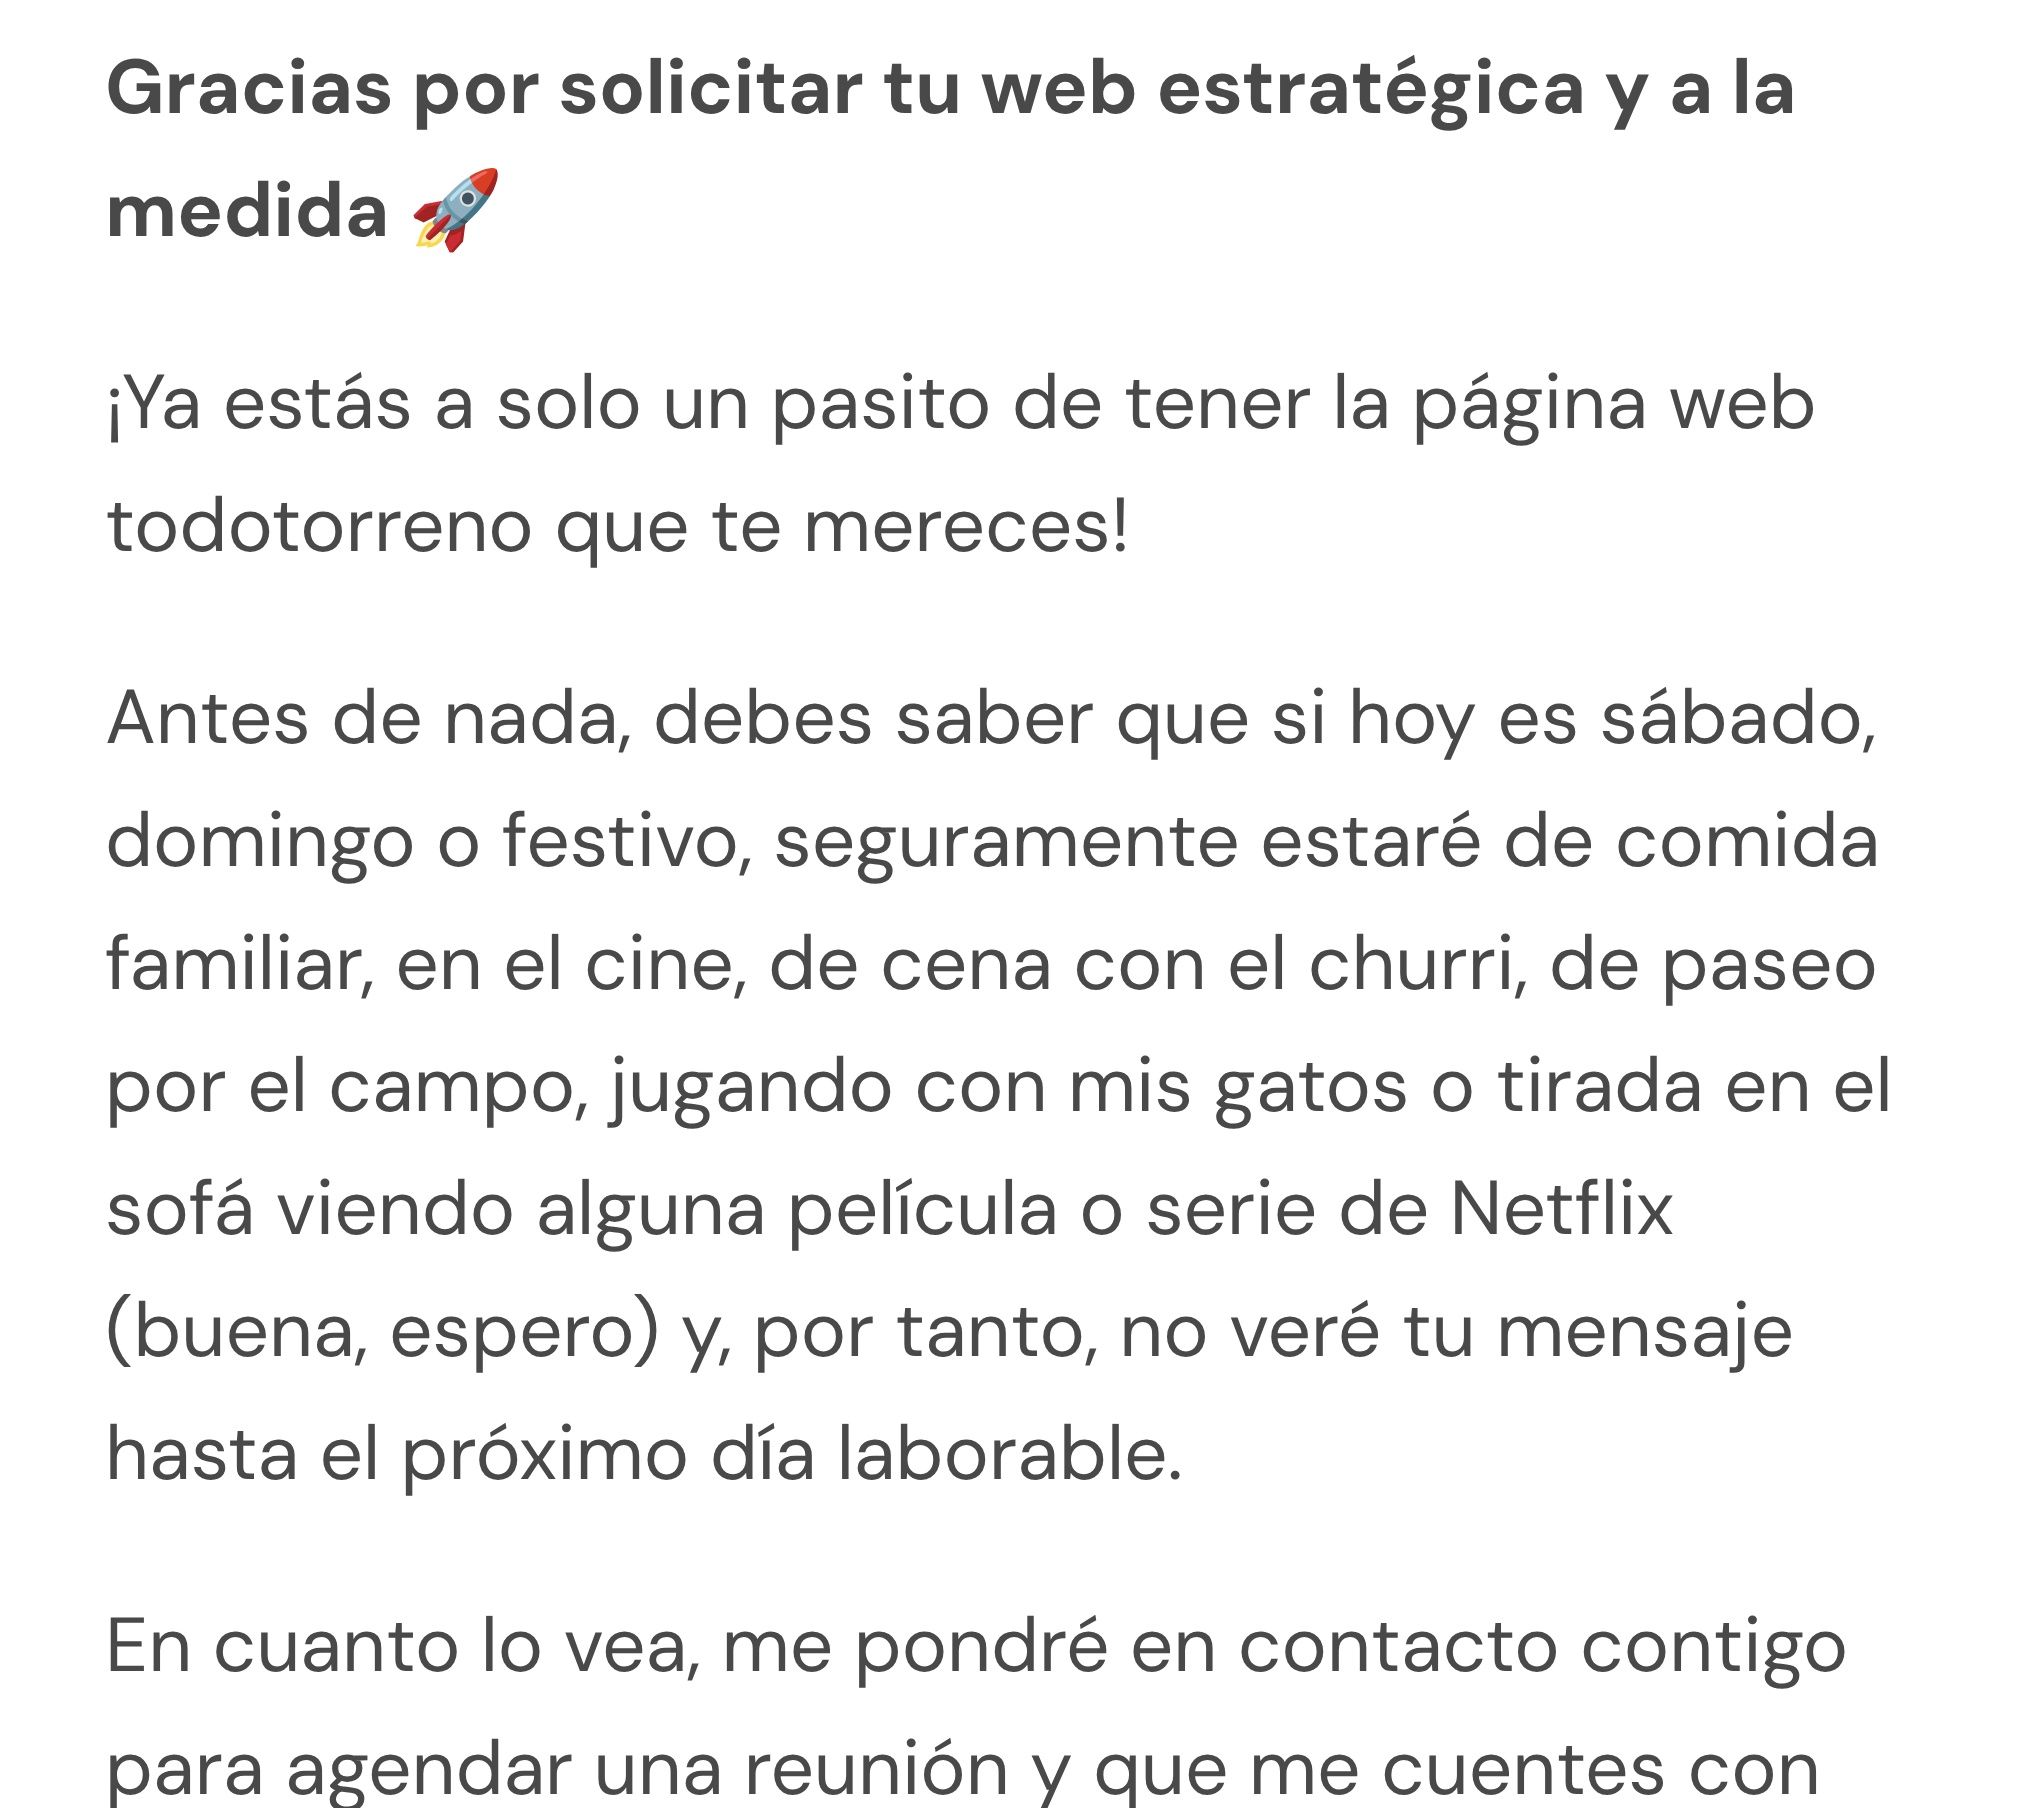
(async () => {
    const canvas = document.querySelector("canvas");
    canvas.width = 2039;
    canvas.height = 1808;
    const context = canvas.getContext("2d");
    context.miterLimit = 4;
    context.fontKerning = "normal";
    function write(s, x, y, font, color) {
        context.font = font;
        context.fillStyle = color;
        context.fillText(s, x, y);
    }
    function block(x, y, w, h, color) {
        context.fillStyle = color;
        context.fillRect(x, y, w, h);
    }

    block(0, 0, 2039, 1808, "rgb(255, 255, 255)");
    write("Gracias por solicitar tu web estratégica y a la", 105, 113, "bold 76.6px DM Sans", "rgb(73, 73, 73)");
    write("medida", 105, 236, "bold 76.6px DM Sans", "rgb(73, 73, 73)");
    write("🚀", 408, 236, "bold 76.6px Noto Color Emoji", "rgb(73, 73, 73)");
    write("¡Ya estás a solo un pasito de tener la página web", 105, 428, "76.6px DM Sans", "rgb(73, 73, 73)");
    write("todotorreno que te mereces!", 105, 551, "76.6px DM Sans", "rgb(73, 73, 73)");
    write("Antes de nada, debes saber que si hoy es sábado,", 105, 743, "76.6px DM Sans", "rgb(73, 73, 73)");
    write("domingo o festivo, seguramente estaré de comida", 105, 866, "76.6px DM Sans", "rgb(73, 73, 73)");
    write("familiar, en el cine, de cena con el churri, de paseo", 105, 989, "76.6px DM Sans", "rgb(73, 73, 73)");
    write("por el campo, jugando con mis gatos o tirada en el", 105, 1111, "76.6px DM Sans", "rgb(73, 73, 73)");
    write("sofá viendo alguna película o serie de Netflix", 105, 1234, "76.6px DM Sans", "rgb(73, 73, 73)");
    write("(buena, espero) y, por tanto, no veré tu mensaje", 105, 1356, "76.6px DM Sans", "rgb(73, 73, 73)");
    write("hasta el próximo día laborable.", 105, 1479, "76.6px DM Sans", "rgb(73, 73, 73)");
    write("En cuanto lo vea, me pondré en contacto contigo", 105, 1671, "76.6px DM Sans", "rgb(73, 73, 73)");
    write("para agendar una reunión y que me cuentes con", 105, 1794, "76.6px DM Sans", "rgb(73, 73, 73)");
})();
